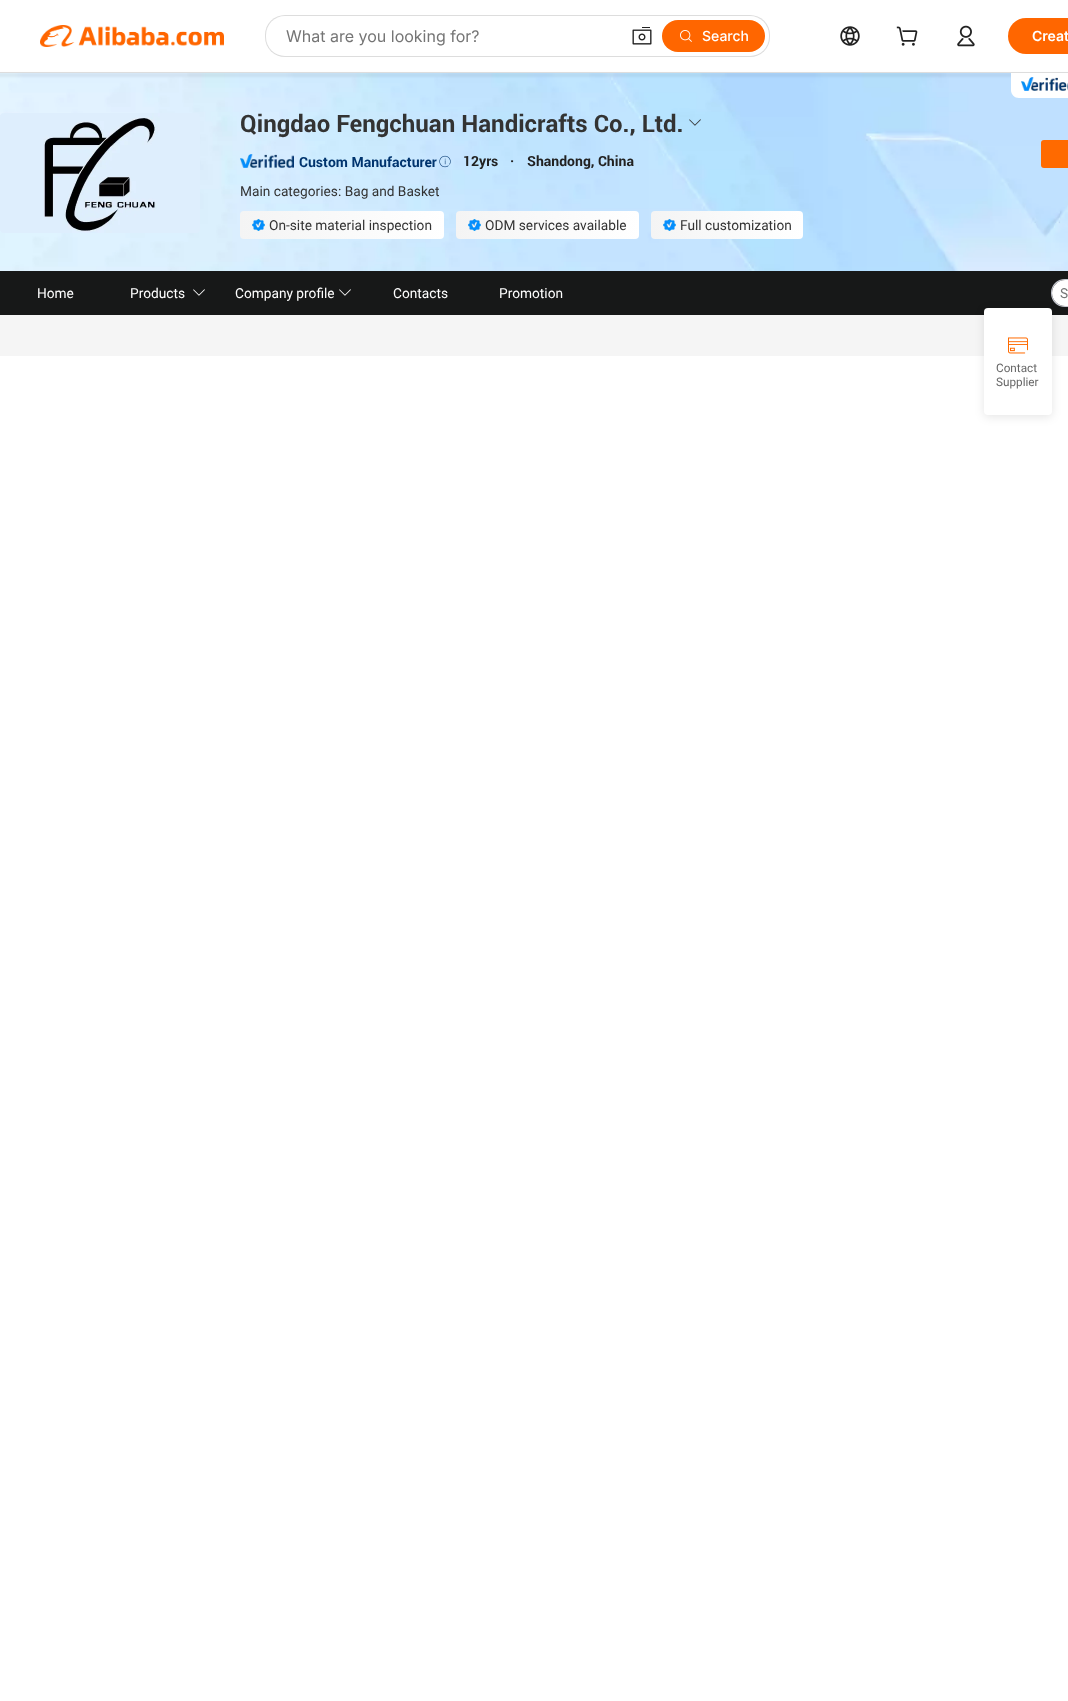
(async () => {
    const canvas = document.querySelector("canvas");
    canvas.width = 1068;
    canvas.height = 1701;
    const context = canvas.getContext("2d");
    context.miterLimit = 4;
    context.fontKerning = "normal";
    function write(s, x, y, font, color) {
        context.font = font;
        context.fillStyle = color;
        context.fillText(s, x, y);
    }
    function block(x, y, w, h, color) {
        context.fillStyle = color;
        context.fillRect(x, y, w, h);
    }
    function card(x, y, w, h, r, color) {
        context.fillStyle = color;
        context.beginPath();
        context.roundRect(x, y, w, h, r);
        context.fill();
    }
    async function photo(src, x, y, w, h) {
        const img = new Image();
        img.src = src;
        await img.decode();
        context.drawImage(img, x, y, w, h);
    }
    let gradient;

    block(0, 0, 1068, 1701, "rgb(255, 255, 255)");
    await photo("media/7.png", 0, 73, 1068, 198);
    context.fillStyle = "rgba(0, 0, 0, 0.05)";
    context.filter = "blur(1px)";
    context.beginPath();
    context.rect(-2, 73, 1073, 4);
    context.fill();
    context.filter = "none";
    block(0, 72, 1068, 1, "rgb(221, 221, 221)");
    await photo("media/1.png", 40, 25, 184, 22);
    card(265, 15, 505, 42, 20, "rgb(221, 221, 221)");
    card(266, 16, 503, 40, 19, "rgb(255, 255, 255)");
    write("What are you looking for?", 286, 42, "16px Inter", "rgb(117, 117, 117)");
    await photo("media/2.png", 632, 27, 20, 18);
    card(662, 20, 103, 32, 16, "rgb(255, 102, 0)");
    await photo("media/3.png", 680, 30, 12, 12);
    write("Search", 702, 41, "500 14px Inter", "rgb(255, 255, 255)");
    await photo("media/4.png", 840, 26, 20, 20);
    await photo("media/5.png", 896, 26, 22, 20);
    await photo("media/6.png", 957, 25, 18, 22);
    card(1008, 18, 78, 36, 18, "rgb(255, 102, 0)");
    write("Creat", 1032, 41, "600 14px Inter", "rgb(255, 255, 255)");
    context.beginPath();
    context.moveTo(1011, 73);
    context.lineTo(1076, 73);
    context.lineTo(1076, 90);
    context.bezierCurveTo(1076, 94.5, 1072.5, 98, 1068, 98);
    context.lineTo(1019, 98);
    context.bezierCurveTo(1014.5, 98, 1011, 94.5, 1011, 90);
    context.closePath();
    context.fill();
    await photo("media/8.png", 1021, 77, 47, 14);
    await photo("media/9.png", 0, 113, 200, 120);
    write("Qingdao Fengchuan Handicrafts Co., Ltd.", 240, 132, "bold 24px Roboto", "rgb(51, 51, 51)");
    await photo("media/10.png", 689, 119, 12, 7);
    await photo("media/11.png", 240, 154, 54, 14);
    write("Custom Manufacturer", 299, 167, "bold 14px Roboto", "rgb(0, 52, 110)");
    await photo("media/12.png", 439, 155, 12, 13);
    write("12yrs", 463, 166, "bold 14px Roboto", "rgb(34, 34, 34)");
    write("·", 510, 166, "bold 14px Roboto", "rgb(34, 34, 34)");
    write("Shandong, China", 527, 166, "bold 14px Roboto", "rgb(34, 34, 34)");
    write("Main categories: Bag and Basket", 240, 196, "14px Roboto", "rgb(51, 51, 51)");
    gradient = context.createLinearGradient(444, 225, 240, 225);
    gradient.addColorStop(0, "rgb(255, 255, 255)");
    gradient.addColorStop(1, "rgb(244, 244, 244)");
    context.fillStyle = gradient;
    context.beginPath();
    context.roundRect(240, 211, 204, 28, 4);
    context.fill();
    await photo("media/13.png", 252, 219, 13, 12);
    write("On-site material inspection", 269, 230, "14px Roboto", "rgb(51, 51, 51)");
    gradient = context.createLinearGradient(639, 225, 456, 225);
    gradient.addColorStop(0, "rgb(255, 255, 255)");
    gradient.addColorStop(1, "rgb(244, 244, 244)");
    context.fillStyle = gradient;
    context.beginPath();
    context.roundRect(456, 211, 183, 28, 4);
    context.fill();
    await photo("media/14.png", 468, 219, 13, 12);
    write("ODM services available", 485, 230, "14px Roboto", "rgb(51, 51, 51)");
    gradient = context.createLinearGradient(803, 225, 651, 225);
    gradient.addColorStop(0, "rgb(255, 255, 255)");
    gradient.addColorStop(1, "rgb(244, 244, 244)");
    context.fillStyle = gradient;
    context.beginPath();
    context.roundRect(651, 211, 152, 28, 4);
    context.fill();
    await photo("media/15.png", 663, 219, 13, 12);
    write("Full customization", 680, 230, "14px Roboto", "rgb(51, 51, 51)");
    card(1041, 140, 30, 28, 3, "rgb(255, 106, 0)");
    block(0, 271, 1068, 44, "rgb(23, 24, 24)");
    write("Home", 37, 298, "14px Roboto", "rgb(255, 255, 255)");
    write("Products", 130, 298, "14px Roboto", "rgb(255, 255, 255)");
    await photo("media/16.png", 193, 289, 12, 7);
    write("Company profile", 235, 298, "14px Roboto", "rgb(255, 255, 255)");
    await photo("media/16.png", 339, 289, 12, 7);
    write("Contacts", 393, 298, "14px Roboto", "rgb(255, 255, 255)");
    write("Promotion", 499, 298, "14px Roboto", "rgb(255, 255, 255)");
    context.fillStyle = "rgb(196, 198, 207)";
    context.beginPath();
    context.moveTo(1065, 279);
    context.lineTo(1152, 279);
    context.lineTo(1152, 307);
    context.lineTo(1065, 307);
    context.bezierCurveTo(1057, 307, 1051, 301, 1051, 293);
    context.bezierCurveTo(1051, 285, 1057, 279, 1065, 279);
    context.closePath();
    context.moveTo(1065, 280);
    context.lineTo(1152, 280);
    context.lineTo(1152, 306);
    context.lineTo(1065, 306);
    context.bezierCurveTo(1058, 306, 1052, 300, 1052, 293);
    context.bezierCurveTo(1052, 286, 1058, 280, 1065, 280);
    context.closePath();
    context.fill("evenodd");
    context.fillStyle = "rgb(255, 255, 255)";
    context.beginPath();
    context.moveTo(1065, 280);
    context.lineTo(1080.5, 280);
    context.bezierCurveTo(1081, 280, 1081, 280, 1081, 280.5);
    context.lineTo(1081, 305.5);
    context.bezierCurveTo(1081, 306, 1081, 306, 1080.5, 306);
    context.lineTo(1065, 306);
    context.bezierCurveTo(1058, 306, 1052, 300, 1052, 293);
    context.bezierCurveTo(1052, 286, 1058, 280, 1065, 280);
    context.closePath();
    context.fill();
    write("S", 1060, 298, "14px Roboto", "rgb(117, 117, 117)");
    block(0, 315, 1068, 41, "rgb(245, 245, 245)");
    context.fillStyle = "rgba(0, 0, 0, 0.1)";
    context.filter = "blur(5px)";
    context.beginPath();
    context.roundRect(984, 310, 68, 107, 4);
    context.fill();
    context.filter = "none";
    card(984, 308, 68, 107, 4, "rgb(255, 255, 255)");
    await photo("media/17.png", 1008, 337, 20, 17);
    write("Contact", 996, 372, "12px Roboto", "rgb(102, 102, 102)");
    write("Supplier", 996, 386, "12px Roboto", "rgb(102, 102, 102)");
})();
